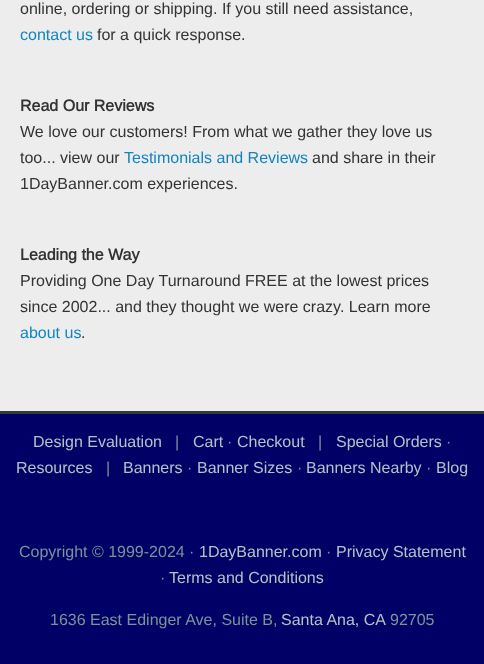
(async () => {
    const canvas = document.querySelector("canvas");
    canvas.width = 484;
    canvas.height = 664;
    const context = canvas.getContext("2d");
    context.miterLimit = 4;
    context.fontKerning = "normal";
    function write(s, x, y, font, color) {
        context.font = font;
        context.fillStyle = color;
        context.fillText(s, x, y);
    }
    function block(x, y, w, h, color) {
        context.fillStyle = color;
        context.fillRect(x, y, w, h);
    }

    block(0, 0, 484, 664, "rgb(237, 237, 237)");
    write("online, ordering or shipping. If you still need assistance,", 20, 14, "16px Arimo", "rgb(51, 51, 51)");
    write("contact us", 20, 40, "16px Arimo", "rgb(18, 132, 192)");
    write("for a quick response.", 97, 40, "16px Arimo", "rgb(51, 51, 51)");
    write("Read Our Reviews", 20, 111, "bold 16px Arimo", "rgb(51, 51, 51)");
    write("We love our customers! From what we gather they love us", 20, 137, "16px Arimo", "rgb(51, 51, 51)");
    write("too... view our", 20, 163, "16px Arimo", "rgb(51, 51, 51)");
    write("Testimonials and Reviews", 124, 163, "16px Arimo", "rgb(18, 132, 192)");
    write("and share in their", 312, 163, "16px Arimo", "rgb(51, 51, 51)");
    write("1DayBanner.com experiences.", 20, 189, "16px Arimo", "rgb(51, 51, 51)");
    write("Leading the Way", 20, 260, "bold 16px Arimo", "rgb(51, 51, 51)");
    write("Providing One Day Turnaround FREE at the lowest prices", 20, 286, "16px Arimo", "rgb(51, 51, 51)");
    write("since 2002... and they thought we were crazy. Learn more", 20, 312, "16px Arimo", "rgb(51, 51, 51)");
    write("about us", 20, 338, "16px Arimo", "rgb(18, 132, 192)");
    write(".", 81, 338, "16px Arimo", "rgb(51, 51, 51)");
    block(0, 414, 484, 250, "rgb(0, 0, 102)");
    block(0, 411, 484, 3, "rgb(48, 59, 61)");
    write("Design Evaluation", 33, 447, "16px Arimo", "rgb(181, 194, 197)");
    write("|", 175, 447, "16px Arimo", "rgb(125, 147, 152)");
    write("Cart", 193, 447, "16px Arimo", "rgb(181, 194, 197)");
    write("·", 227, 447, "16px Arimo", "rgb(125, 147, 152)");
    write("Checkout", 237, 447, "16px Arimo", "rgb(181, 194, 197)");
    write("|", 318, 447, "16px Arimo", "rgb(125, 147, 152)");
    write("Special Orders", 336, 447, "16px Arimo", "rgb(181, 194, 197)");
    write("·", 446, 447, "16px Arimo", "rgb(125, 147, 152)");
    write("Resources", 16, 473, "16px Arimo", "rgb(181, 194, 197)");
    write("|", 106, 473, "16px Arimo", "rgb(125, 147, 152)");
    write("Banners", 123, 473, "16px Arimo", "rgb(181, 194, 197)");
    write("·", 187, 473, "16px Arimo", "rgb(125, 147, 152)");
    write("Banner Sizes", 197, 473, "16px Arimo", "rgb(181, 194, 197)");
    write("·", 297, 473, "16px Arimo", "rgb(125, 147, 152)");
    write("Banners Nearby", 306, 473, "16px Arimo", "rgb(181, 194, 197)");
    write("·", 426, 473, "16px Arimo", "rgb(125, 147, 152)");
    write("Blog", 436, 473, "16px Arimo", "rgb(181, 194, 197)");
    write("Copyright © 1999-2024 ·", 19, 557, "16px Arimo", "rgb(125, 147, 152)");
    write("1DayBanner.com", 199, 557, "16px Arimo", "rgb(181, 194, 197)");
    write("·", 326, 557, "16px Arimo", "rgb(125, 147, 152)");
    write("Privacy Statement", 336, 557, "16px Arimo", "rgb(181, 194, 197)");
    write("·", 160, 583, "16px Arimo", "rgb(125, 147, 152)");
    write("Terms and Conditions", 169, 583, "16px Arimo", "rgb(181, 194, 197)");
    write("1636 East Edinger Ave, Suite B,", 50, 625, "16px Arimo", "rgb(125, 147, 152)");
    write("Santa Ana, CA", 281, 625, "16px Arimo", "rgb(181, 194, 197)");
    write("92705", 390, 625, "16px Arimo", "rgb(125, 147, 152)");
})();
